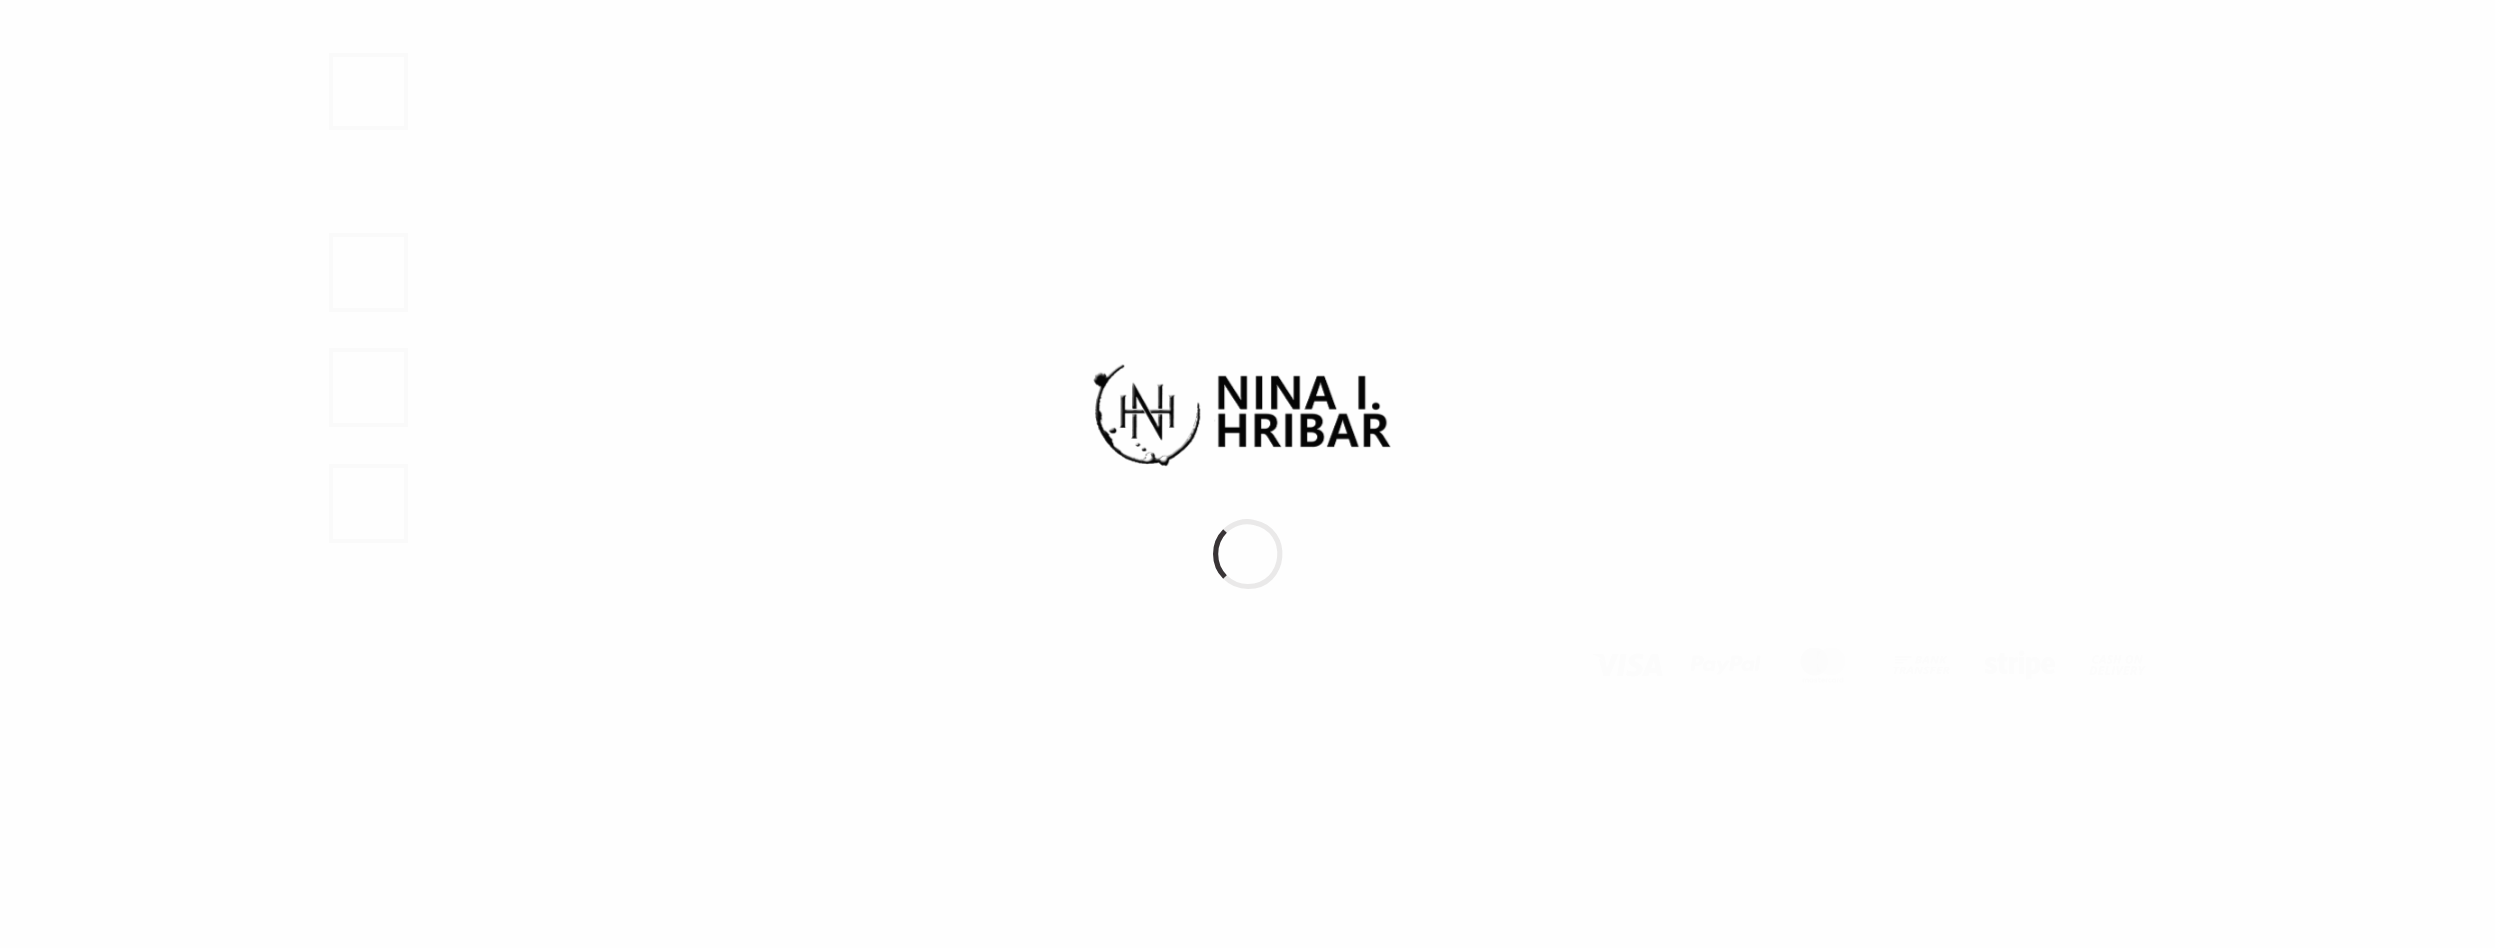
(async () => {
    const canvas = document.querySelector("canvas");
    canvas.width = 2495;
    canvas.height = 948;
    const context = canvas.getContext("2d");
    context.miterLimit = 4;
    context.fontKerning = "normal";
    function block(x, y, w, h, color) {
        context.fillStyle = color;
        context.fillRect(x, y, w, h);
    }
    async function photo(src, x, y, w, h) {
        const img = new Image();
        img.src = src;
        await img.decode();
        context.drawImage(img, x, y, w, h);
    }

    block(0, 0, 2495, 948, "rgb(254, 254, 254)");
    context.strokeStyle = "rgb(250, 250, 250)";
    context.lineWidth = 4;
    context.strokeRect(331, 55, 75, 73);
    context.strokeRect(331, 235, 75, 75);
    context.strokeRect(331, 350, 75, 75);
    context.strokeRect(331, 466, 75, 75);
    await photo("media/1.png", 1593, 653, 70, 24);
    await photo("media/2.png", 1691, 655, 70, 20);
    await photo("media/3.png", 1800, 648, 46, 35);
    await photo("media/4.png", 1893, 656, 57, 18);
    await photo("media/5.png", 1985, 650, 70, 30);
    await photo("media/6.png", 2089, 655, 57, 20);
    await photo("media/7.png", 1093, 364, 298, 103);
    context.beginPath();
    context.moveTo(1225, 531);
    context.bezierCurveTo(1232.5, 523.5, 1243.5, 520, 1254, 522.5);
    context.bezierCurveTo(1292, 530, 1286.5, 586.5, 1248, 586.5);
    context.bezierCurveTo(1239, 586.5, 1231, 583, 1225, 577);
    context.strokeStyle = "rgb(234, 233, 233)";
    context.lineWidth = 5.2;
    context.stroke();
    context.beginPath();
    context.moveTo(1225, 577);
    context.bezierCurveTo(1212.5, 564.5, 1212.5, 543.5, 1225, 531);
    context.strokeStyle = "rgb(57, 52, 54)";
    context.stroke();
})();
